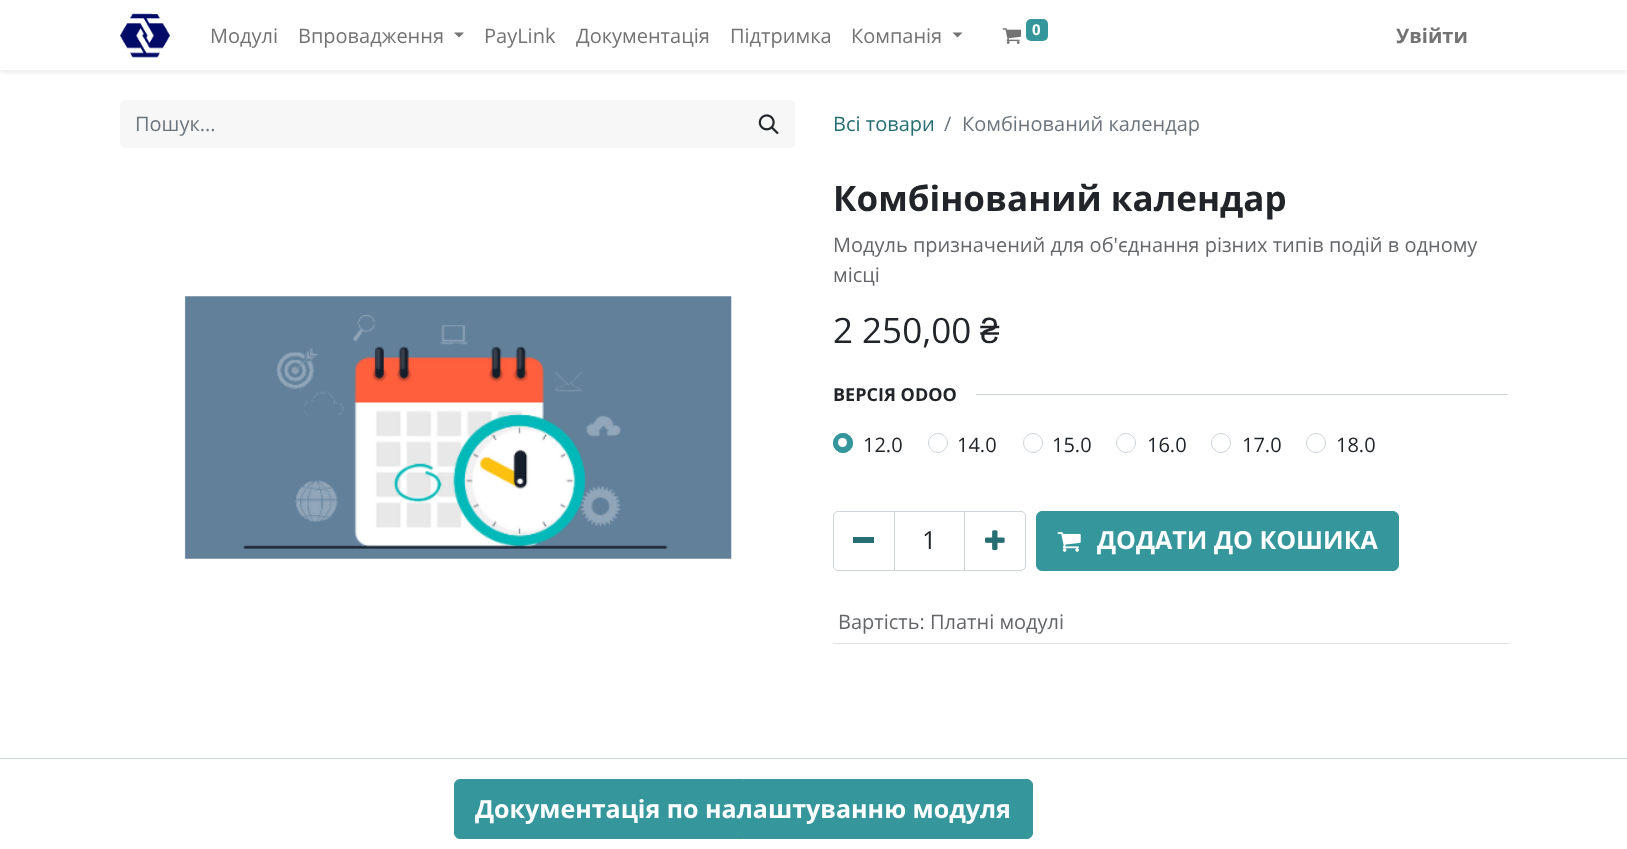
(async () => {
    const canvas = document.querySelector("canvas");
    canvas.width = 1627;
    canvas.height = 849;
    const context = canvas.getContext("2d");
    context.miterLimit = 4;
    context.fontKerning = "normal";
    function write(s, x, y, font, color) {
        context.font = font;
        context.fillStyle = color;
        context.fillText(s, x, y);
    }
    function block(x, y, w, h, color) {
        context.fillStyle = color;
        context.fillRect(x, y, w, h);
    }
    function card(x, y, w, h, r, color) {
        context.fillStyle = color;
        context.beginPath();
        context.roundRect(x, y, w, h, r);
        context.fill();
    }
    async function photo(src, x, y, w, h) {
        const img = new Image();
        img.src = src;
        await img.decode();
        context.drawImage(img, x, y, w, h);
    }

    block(0, 0, 1627, 849, "rgb(255, 255, 255)");
    context.save();
    context.beginPath();
    context.rect(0, 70, 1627, 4);
    context.clip();
    context.fillStyle = "rgba(0, 0, 0, 0.07)";
    context.filter = "blur(2.5px)";
    context.beginPath();
    context.rect(0, 3, 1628, 70);
    context.fill();
    context.filter = "none";
    context.restore();
    await photo("media/1.png", 120, 13, 50, 45);
    write("Модулі", 210, 43, "20px Open Sans", "rgb(115, 115, 115)");
    write("Впровадження", 298, 43, "20px Open Sans", "rgb(115, 115, 115)");
    context.beginPath();
    context.moveTo(454, 32.5);
    context.lineTo(464, 32.5);
    context.lineTo(459, 37.5);
    context.closePath();
    context.fill();
    write("PayLink", 484, 43, "20px Open Sans", "rgb(115, 115, 115)");
    write("Документація", 576, 43, "20px Open Sans", "rgb(115, 115, 115)");
    write("Підтримка", 730, 43, "20px Open Sans", "rgb(115, 115, 115)");
    write("Компанія", 851, 43, "20px Open Sans", "rgb(115, 115, 115)");
    context.beginPath();
    context.moveTo(952.5, 32.5);
    context.lineTo(962.5, 32.5);
    context.lineTo(957.5, 37.5);
    context.closePath();
    context.fill();
    await photo("media/2.png", 1002, 28, 20, 16);
    card(1026, 19, 22, 22, 5, "rgb(53, 151, 156)");
    write("0", 1032, 35, "bold 15px Open Sans", "rgb(255, 255, 255)");
    write("Увійти", 1396, 43, "bold 20px Open Sans", "rgb(115, 115, 115)");
    context.fillStyle = "rgb(247, 247, 247)";
    context.beginPath();
    context.roundRect(120, 100, 624, 48, [5, 0, 0, 5]);
    context.fill();
    write("Пошук...", 135, 131, "20px Open Sans", "rgb(108, 117, 125)");
    context.fillStyle = "rgb(247, 247, 247)";
    context.beginPath();
    context.roundRect(743, 100, 52, 48, [0, 5, 5, 0]);
    context.fill();
    await photo("media/3.png", 758, 114, 21, 21);
    write("Всі товари", 833, 131, "20px Open Sans", "rgb(39, 110, 114)");
    write("/", 944, 131, "20px Open Sans", "rgb(108, 117, 125)");
    write("Комбінований календар", 962, 131, "20px Open Sans", "rgb(108, 117, 125)");
    await photo("media/4.png", 184, 296, 548, 263);
    write("Комбінований календар", 833, 211, "bold 35px Open Sans", "rgb(33, 37, 41)");
    write("Модуль призначений для об'єднання різних типів подій в одному", 833, 252, "20px Open Sans", "rgb(100, 102, 105)");
    write("місці", 833, 282, "20px Open Sans", "rgb(100, 102, 105)");
    write("2 250,00", 833, 343, "35px Open Sans", "rgb(33, 37, 41)");
    write("₴", 980, 343, "35px Liberation Sans", "rgb(33, 37, 41)");
    write("ВЕРСІЯ ODOO", 833, 401, "bold 18px Open Sans", "rgb(33, 37, 41)");
    block(976, 394, 532, 1, "rgb(206, 212, 218)");
    context.fillStyle = "rgb(53, 151, 156)";
    context.beginPath();
    context.arc(843, 443, 10, 0, Math.PI * 2);
    context.fill();
    context.fillStyle = "rgb(255, 255, 255)";
    context.beginPath();
    context.arc(842.5, 442.5, 4.5, 0, Math.PI * 2);
    context.fill();
    context.beginPath();
    context.arc(843, 443, 9.5, 0, Math.PI * 2);
    context.strokeStyle = "rgb(53, 151, 156)";
    context.stroke();
    write("12.0", 863, 452, "20px Open Sans", "rgb(33, 37, 41)");
    context.beginPath();
    context.arc(938, 443, 9.5, 0, Math.PI * 2);
    context.strokeStyle = "rgb(206, 212, 218)";
    context.stroke();
    write("14.0", 957, 452, "20px Open Sans", "rgb(33, 37, 41)");
    context.beginPath();
    context.arc(1033, 443, 9.5, 0, Math.PI * 2);
    context.stroke();
    write("15.0", 1052, 452, "20px Open Sans", "rgb(33, 37, 41)");
    context.beginPath();
    context.arc(1126, 443, 9.5, 0, Math.PI * 2);
    context.stroke();
    write("16.0", 1147, 452, "20px Open Sans", "rgb(33, 37, 41)");
    context.beginPath();
    context.arc(1221, 443, 9.5, 0, Math.PI * 2);
    context.stroke();
    write("17.0", 1242, 452, "20px Open Sans", "rgb(33, 37, 41)");
    context.beginPath();
    context.arc(1316, 443, 9.5, 0, Math.PI * 2);
    context.stroke();
    write("18.0", 1336, 452, "20px Open Sans", "rgb(33, 37, 41)");
    context.strokeRect(894.5, 511.5, 70, 59);
    context.beginPath();
    context.roundRect(833.5, 511.5, 61, 59, [4.5, 0, 0, 4.5]);
    context.stroke();
    block(853, 537, 21, 6, "rgb(39, 110, 114)");
    write("1", 922, 549, "25px Open Sans", "rgb(33, 37, 41)");
    context.beginPath();
    context.roundRect(964.5, 511.5, 61, 59, [0, 4.5, 4.5, 0]);
    context.stroke();
    await photo("media/5.png", 985, 530, 20, 20);
    context.fillStyle = "rgb(53, 151, 156)";
    context.beginPath();
    context.roundRect(1036.5, 511.5, 362, 59, 5.5);
    context.fill();
    context.strokeStyle = "rgb(53, 151, 156)";
    context.stroke();
    await photo("media/6.png", 1057, 532, 24, 20);
    write("ДОДАТИ ДО КОШИКА", 1097, 549, "bold 25px Open Sans", "rgb(255, 255, 255)");
    block(833, 643, 676, 1, "rgb(222, 226, 230)");
    write("Вартість: Платні модулі", 838, 629, "20px Open Sans", "rgb(100, 102, 105)");
    block(0, 758, 1627, 1, "rgb(206, 212, 218)");
    context.fillStyle = "rgb(53, 151, 156)";
    context.beginPath();
    context.roundRect(454.5, 779.5, 578, 59, 5.5);
    context.fill();
    context.stroke();
    write("Документація по налаштуванню модуля", 475, 818, "bold 25px Open Sans", "rgb(255, 255, 255)");
})();
